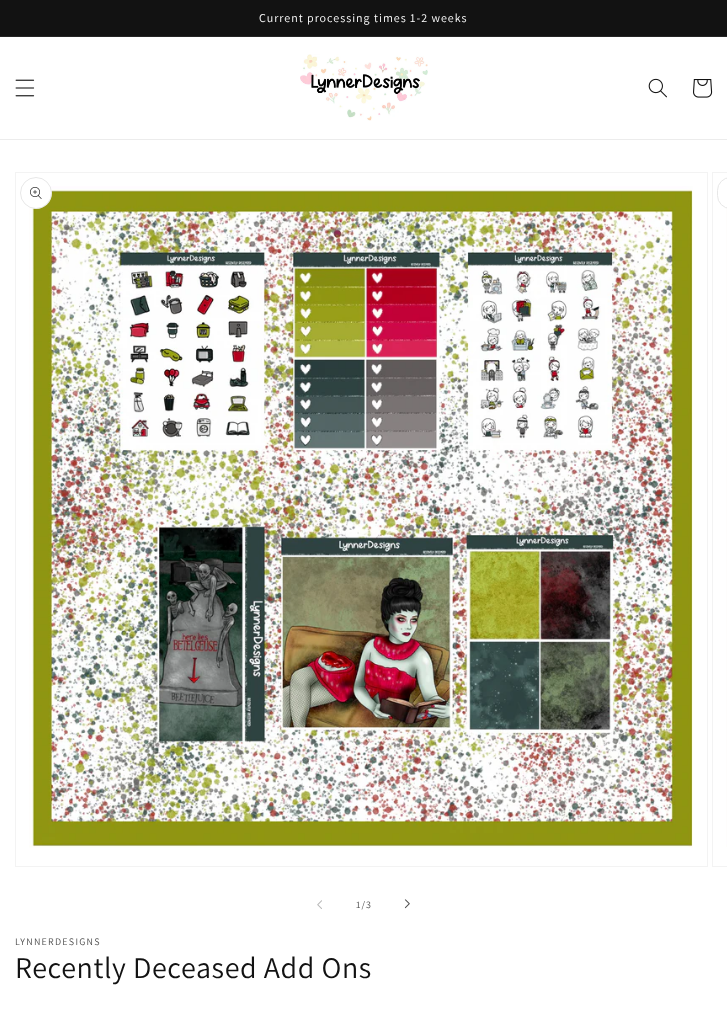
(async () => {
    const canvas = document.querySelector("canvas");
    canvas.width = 727;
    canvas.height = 1013;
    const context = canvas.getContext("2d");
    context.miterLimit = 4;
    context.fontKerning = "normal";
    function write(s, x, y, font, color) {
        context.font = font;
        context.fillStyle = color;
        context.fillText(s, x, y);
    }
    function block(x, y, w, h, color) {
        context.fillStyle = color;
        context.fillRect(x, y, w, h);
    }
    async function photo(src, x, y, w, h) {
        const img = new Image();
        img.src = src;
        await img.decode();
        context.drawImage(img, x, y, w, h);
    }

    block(0, 0, 727, 1013, "rgb(255, 255, 255)");
    block(0, 0, 727, 36, "rgb(18, 18, 18)");
    block(0, 36, 727, 1, "rgb(37, 37, 37)");
    context.letterSpacing = "1px";
    write("Current processing times 1-2 weeks", 259, 22, "12px Assistant", "rgb(255, 255, 255)");
    block(0, 139, 727, 1, "rgb(236, 236, 236)");
    await photo("media/1.png", 15, 79, 20, 18);
    await photo("media/2.png", 300, 54, 128, 67);
    await photo("media/3.png", 648, 78, 19, 20);
    await photo("media/4.png", 693, 79, 20, 19);
    context.strokeStyle = "rgb(243, 243, 243)";
    context.strokeRect(15.5, 172.5, 692, 694);
    await photo("media/5.png", 29, 186, 664, 662);
    context.fillStyle = "rgb(255, 255, 255)";
    context.beginPath();
    context.arc(36, 193, 16, 0, Math.PI * 2);
    context.fill();
    context.beginPath();
    context.arc(36, 193, 15.5, 0, Math.PI * 2);
    context.strokeStyle = "rgba(18, 18, 18, 0.1)";
    context.stroke();
    await photo("media/6.png", 30, 187, 12, 12);
    context.strokeStyle = "rgb(243, 243, 243)";
    context.strokeRect(712.5, 172.5, 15, 694);
    await photo("media/7.png", 726, 207, 1, 640);
    context.beginPath();
    context.roundRect(717.5, 177.5, 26, 31, 15.5);
    context.strokeStyle = "rgb(231, 231, 231)";
    context.stroke();
    await photo("media/8.png", 317, 900, 5, 9);
    write("1/3", 356, 908, "10px Assistant", "rgb(77, 77, 77)");
    await photo("media/9.png", 404, 899, 6, 10);
    context.letterSpacing = "1.25px";
    write("LYNNERDESIGNS", 15, 945, "10px Assistant", "rgb(77, 77, 77)");
    context.letterSpacing = "0.6px";
    write("Recently Deceased Add Ons", 15, 978, "30px Assistant", "rgb(18, 18, 18)");
})();
